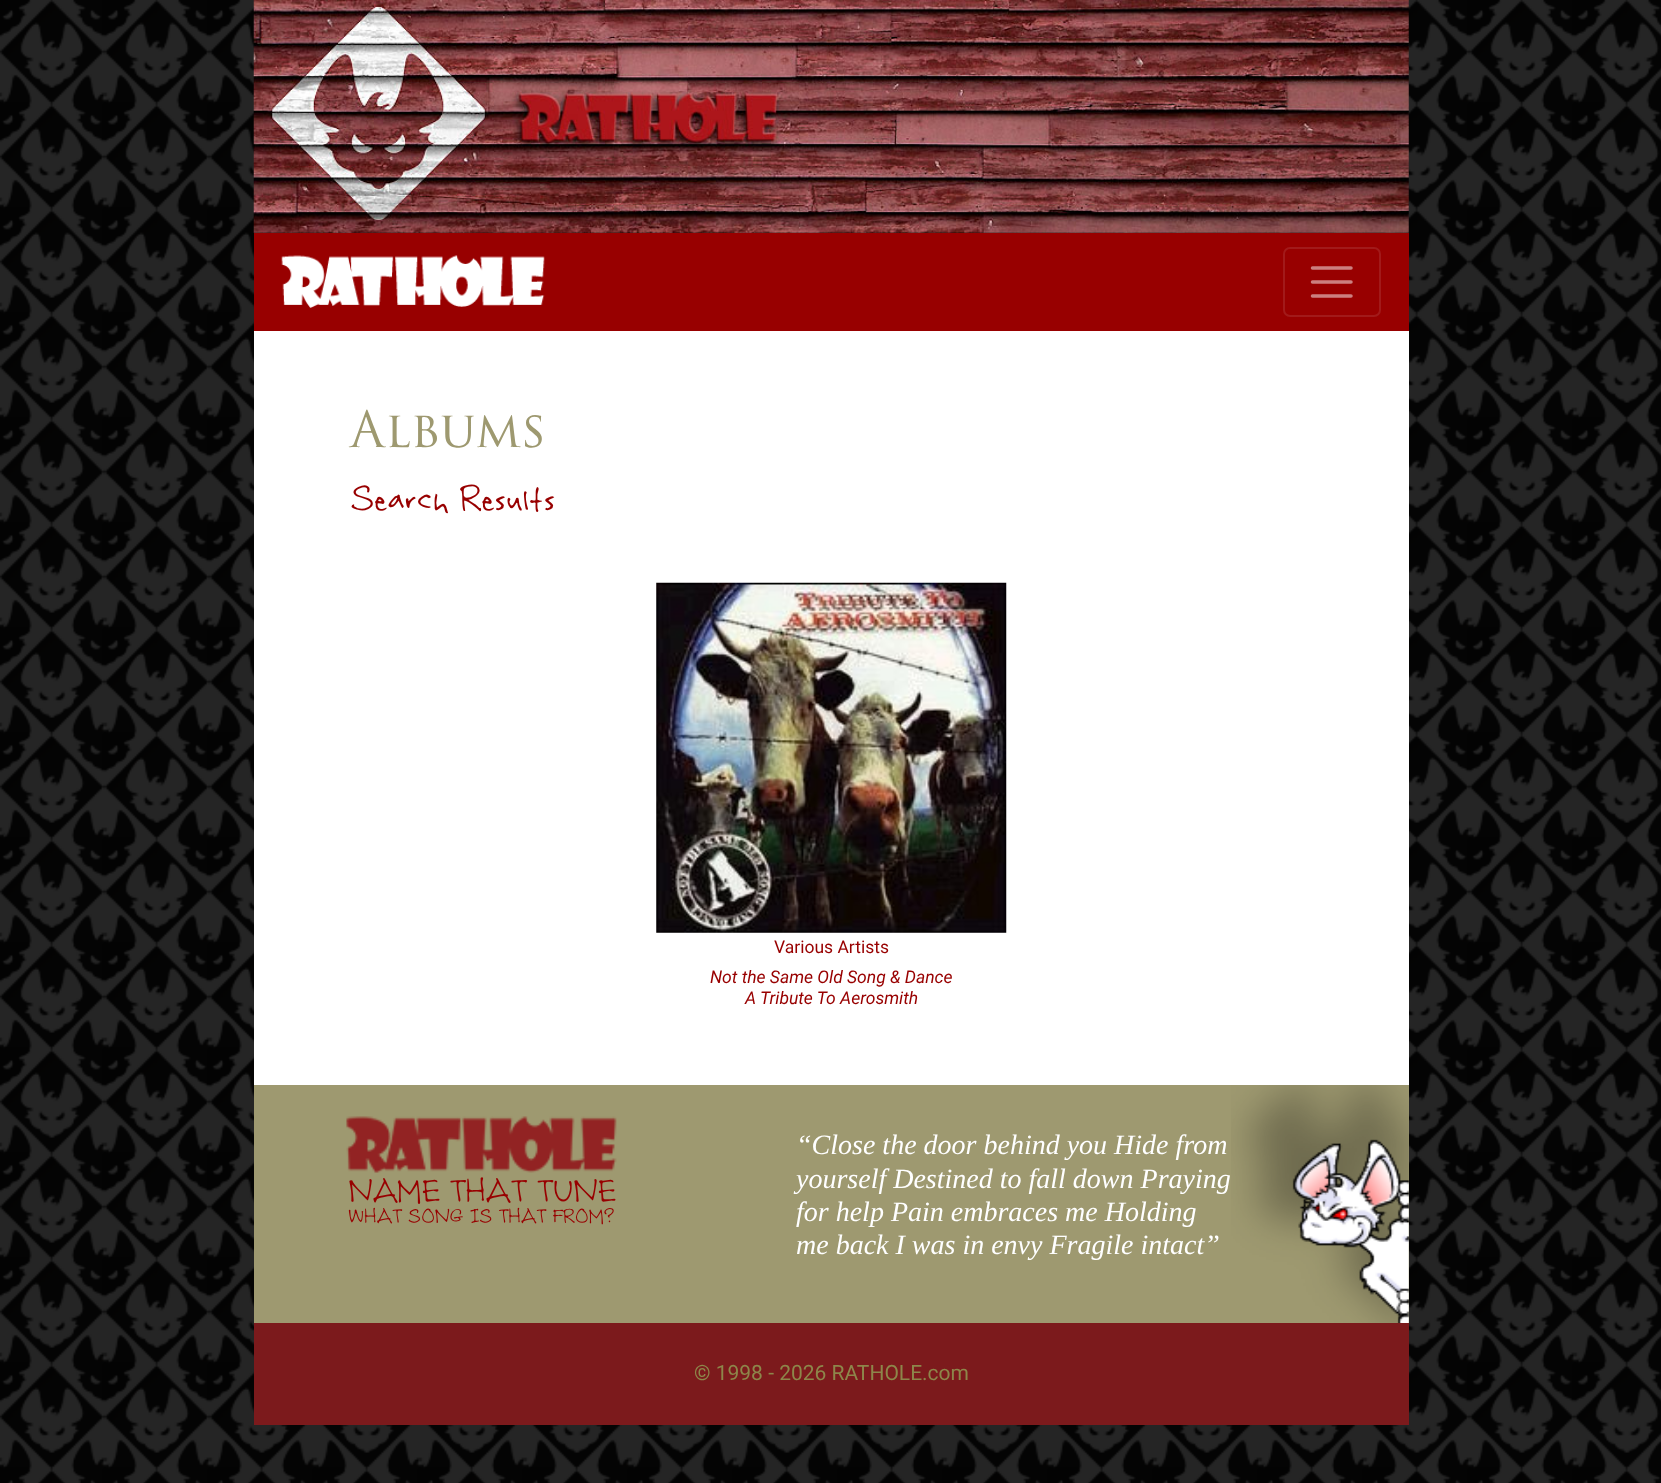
(async () => {
    const canvas = document.querySelector("canvas");
    canvas.width = 1661;
    canvas.height = 1483;
    const context = canvas.getContext("2d");
    context.miterLimit = 4;
    context.fontKerning = "normal";
    function write(s, x, y, font, color) {
        context.font = font;
        context.fillStyle = color;
        context.fillText(s, x, y);
    }
    function block(x, y, w, h, color) {
        context.fillStyle = color;
        context.fillRect(x, y, w, h);
    }
    async function photo(src, x, y, w, h) {
        const img = new Image();
        img.src = src;
        await img.decode();
        context.drawImage(img, x, y, w, h);
    }

    block(0, 0, 1661, 1483, "rgb(255, 255, 255)");
    await photo("media/1.png", 0, 0, 1661, 1483);
    await photo("media/2.png", 253, 0, 1156, 233);
    block(254, 233, 1155, 98, "rgb(152, 0, 0)");
    await photo("media/3.png", 281, 255, 264, 53);
    context.beginPath();
    context.roundRect(1284, 248, 96, 68, 6);
    context.strokeStyle = "rgb(162, 26, 26)";
    context.lineWidth = 2;
    context.stroke();
    context.beginPath();
    context.moveTo(1312.5, 268);
    context.lineTo(1351, 268);
    context.moveTo(1312.5, 282);
    context.lineTo(1351, 282);
    context.moveTo(1312.5, 296);
    context.lineTo(1351, 296);
    context.strokeStyle = "rgb(204, 128, 128)";
    context.lineWidth = 3.5;
    context.lineCap = "round";
    context.stroke();
    block(254, 331, 1155, 754, "rgb(255, 255, 255)");
    write("Albums", 350, 447, "49px 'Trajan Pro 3'", "rgb(158, 153, 112)");
    write("Search Results", 350, 511, "42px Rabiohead", "rgb(152, 0, 0)");
    await photo("media/4.png", 656, 582, 351, 351);
    write("Various Artists", 774, 953, "17.5px Roboto", "rgb(152, 0, 0)");
    write("Not the Same Old Song & Dance", 710, 983, "italic 17.5px Roboto", "rgb(152, 0, 0)");
    write("A Tribute To Aerosmith", 745, 1004, "italic 17.5px Roboto", "rgb(152, 0, 0)");
    block(254, 1085, 1155, 238, "rgb(158, 153, 112)");
    await photo("media/5.png", 1231, 1085, 178, 238);
    await photo("media/6.png", 346, 1116, 271, 57);
    write("NAME THAT TUNE", 348, 1202, "36.75px Rabiohead", "rgb(152, 0, 0)");
    write("WHAT SONG IS THAT FROM?", 348, 1223, "22.75px Rabiohead", "rgb(152, 0, 0)");
    write("“Close the door behind you Hide from", 796, 1154, "italic 28px Liberation Serif", "rgb(255, 255, 255)");
    write("yourself Destined to fall down Praying", 796, 1188, "italic 28px Liberation Serif", "rgb(255, 255, 255)");
    write("for help Pain embraces me Holding", 796, 1221, "italic 28px Liberation Serif", "rgb(255, 255, 255)");
    write("me back I was in envy Fragile intact”", 796, 1254, "italic 28px Liberation Serif", "rgb(255, 255, 255)");
    block(254, 1323, 1155, 102, "rgb(124, 26, 28)");
    write("© 1998 - 2026 RATHOLE.com", 694, 1380, "21px Roboto", "rgb(141, 134, 74)");
})();
